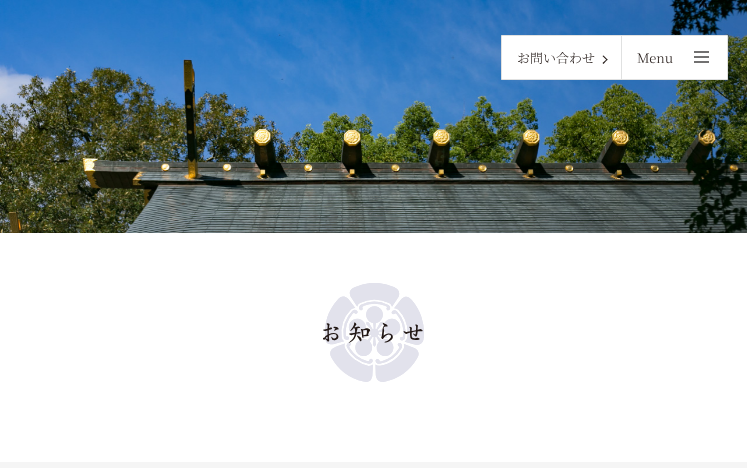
(async () => {
    const canvas = document.querySelector("canvas");
    canvas.width = 747;
    canvas.height = 468;
    const context = canvas.getContext("2d");
    context.miterLimit = 4;
    context.fontKerning = "normal";
    function write(s, x, y, font, color) {
        context.font = font;
        context.fillStyle = color;
        context.fillText(s, x, y);
    }
    function block(x, y, w, h, color) {
        context.fillStyle = color;
        context.fillRect(x, y, w, h);
    }
    async function photo(src, x, y, w, h) {
        const img = new Image();
        img.src = src;
        await img.decode();
        context.drawImage(img, x, y, w, h);
    }

    block(0, 0, 747, 468, "rgb(255, 255, 255)");
    await photo("media/1.png", 0, 0, 747, 233);
    context.beginPath();
    context.rect(501.5, 35.5, 226, 44);
    context.fill();
    context.strokeStyle = "rgb(224, 225, 225)";
    context.stroke();
    block(621, 36, 1, 43, "rgb(224, 225, 225)");
    write("お問い合わせ", 517, 63, "300 13px Noto Serif JP", "rgb(34, 24, 21)");
    context.beginPath();
    context.moveTo(603.5, 55.5);
    context.lineTo(607.5, 59.5);
    context.lineTo(607, 60.5);
    context.lineTo(602.5, 56);
    context.closePath();
    context.fill();
    context.beginPath();
    context.moveTo(607, 59);
    context.lineTo(607.5, 59.5);
    context.lineTo(603.5, 64);
    context.lineTo(602.5, 63);
    context.closePath();
    context.fill();
    write("Menu", 637, 63, "300 13px Noto Serif JP", "rgb(34, 24, 21)");
    block(694, 51, 15, 2, "rgb(114, 113, 113)");
    block(694, 56, 15, 2, "rgb(114, 113, 113)");
    block(694, 61, 15, 2, "rgb(114, 113, 113)");
    await photo("media/2.png", 323, 283, 101, 99);
    block(0, 462, 747, 6, "rgb(245, 245, 245)");
})();
